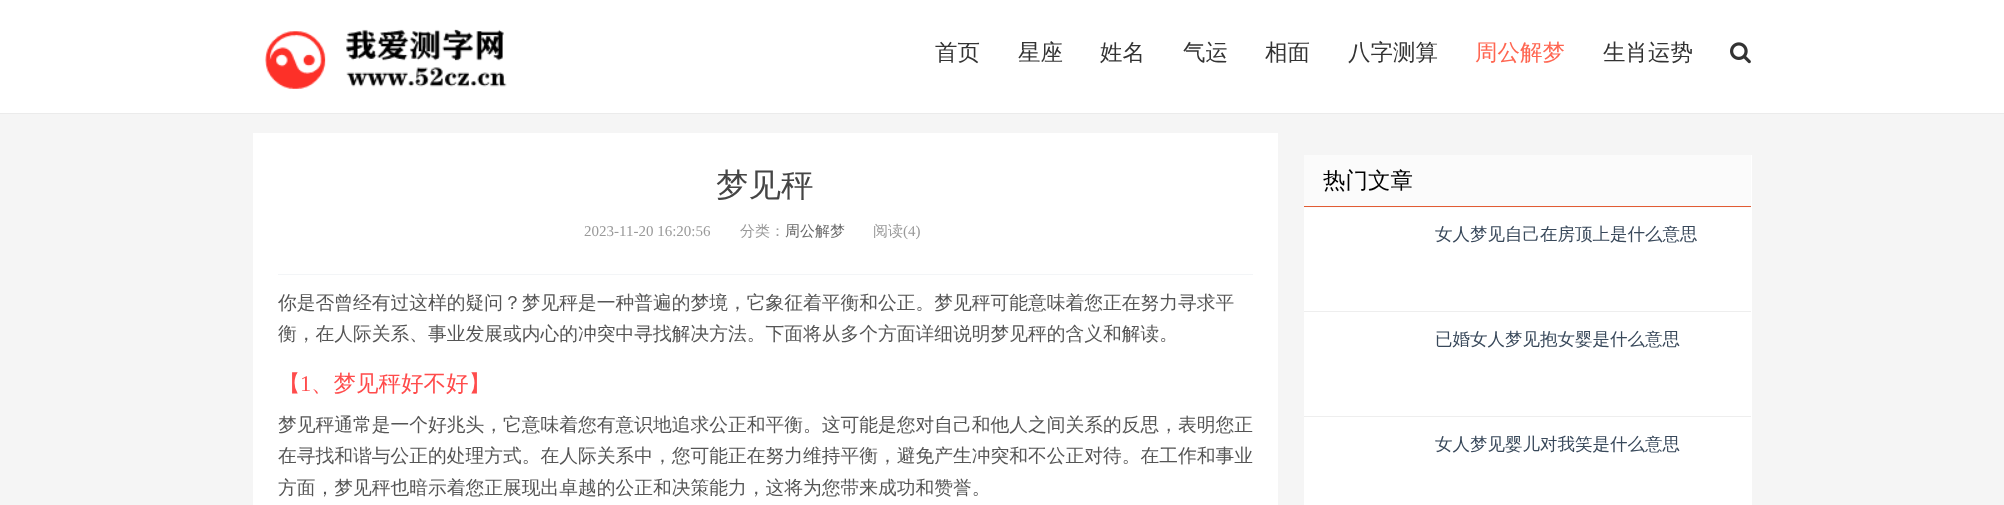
(async () => {
    const canvas = document.querySelector("canvas");
    canvas.width = 2004;
    canvas.height = 505;
    const context = canvas.getContext("2d");
    context.miterLimit = 4;
    context.fontKerning = "normal";
    function write(s, x, y, font, color) {
        context.font = font;
        context.fillStyle = color;
        context.fillText(s, x, y);
    }
    function block(x, y, w, h, color) {
        context.fillStyle = color;
        context.fillRect(x, y, w, h);
    }
    async function photo(src, x, y, w, h) {
        const img = new Image();
        img.src = src;
        await img.decode();
        context.drawImage(img, x, y, w, h);
    }

    block(0, 0, 2004, 505, "rgb(245, 245, 245)");
    block(0, 0, 2004, 113, "rgb(255, 255, 255)");
    block(0, 113, 2004, 1, "rgb(235, 235, 235)");
    await photo("media/1.png", 265, 29, 242, 60);
    write("首页", 935, 60, "500 22.5px WenQuanYi Zen Hei", "rgb(51, 51, 51)");
    write("星座", 1018, 60, "500 22.5px WenQuanYi Zen Hei", "rgb(51, 51, 51)");
    write("姓名", 1100, 60, "500 22.5px WenQuanYi Zen Hei", "rgb(51, 51, 51)");
    write("气运", 1183, 60, "500 22.5px WenQuanYi Zen Hei", "rgb(51, 51, 51)");
    write("相面", 1265, 60, "500 22.5px WenQuanYi Zen Hei", "rgb(51, 51, 51)");
    write("八字测算", 1348, 60, "500 22.5px WenQuanYi Zen Hei", "rgb(51, 51, 51)");
    write("周公解梦", 1475, 60, "500 22.5px WenQuanYi Zen Hei", "rgb(255, 102, 81)");
    write("生肖运势", 1603, 60, "500 22.5px WenQuanYi Zen Hei", "rgb(51, 51, 51)");
    await photo("media/2.png", 1730, 42, 21, 22);
    block(253, 133, 1025, 372, "rgb(255, 255, 255)");
    block(278, 274, 975, 1, "rgb(243, 245, 247)");
    write("梦见秤", 716, 196, "500 32.5px WenQuanYi Zen Hei", "rgb(69, 69, 69)");
    write("2023-11-20 16:20:56", 584, 236, "15px Liberation Serif", "rgb(153, 153, 153)");
    write("分类：", 740, 236, "500 15px WenQuanYi Zen Hei", "rgb(153, 153, 153)");
    write("周公解梦", 785, 236, "500 15px WenQuanYi Zen Hei", "rgb(102, 102, 102)");
    write("阅读", 873, 236, "500 15px WenQuanYi Zen Hei", "rgb(153, 153, 153)");
    write("(4)", 903, 236, "15px Liberation Serif", "rgb(153, 153, 153)");
    write("你是否曾经有过这样的疑问？梦见秤是一种普遍的梦境，它象征着平衡和公正。梦见秤可能意味着您正在努力寻求平", 278, 309, "500 18.75px WenQuanYi Zen Hei", "rgb(85, 85, 85)");
    write("衡，在人际关系、事业发展或内心的冲突中寻找解决方法。下面将从多个方面详细说明梦见秤的含义和解读。", 278, 340, "500 18.75px WenQuanYi Zen Hei", "rgb(85, 85, 85)");
    write("【", 278, 391, "500 22.5px WenQuanYi Zen Hei", "rgb(255, 76, 76)");
    write("1", 300, 391, "22.5px Liberation Serif", "rgb(255, 76, 76)");
    write("、梦见秤好不好】", 311, 391, "500 22.5px WenQuanYi Zen Hei", "rgb(255, 76, 76)");
    write("梦见秤通常是一个好兆头，它意味着您有意识地追求公正和平衡。这可能是您对自己和他人之间关系的反思，表明您正", 278, 431, "500 18.75px WenQuanYi Zen Hei", "rgb(85, 85, 85)");
    write("在寻找和谐与公正的处理方式。在人际关系中，您可能正在努力维持平衡，避免产生冲突和不公正对待。在工作和事业", 278, 462, "500 18.75px WenQuanYi Zen Hei", "rgb(85, 85, 85)");
    write("方面，梦见秤也暗示着您正展现出卓越的公正和决策能力，这将为您带来成功和赞誉。", 278, 494, "500 18.75px WenQuanYi Zen Hei", "rgb(85, 85, 85)");
    block(1304, 155, 448, 350, "rgb(255, 255, 255)");
    block(1304, 155, 447, 53, "rgb(251, 251, 251)");
    block(1304, 206, 447, 1, "rgb(225, 92, 52)");
    write("热门文章", 1323, 188, "500 22.5px WenQuanYi Zen Hei", "rgb(0, 0, 0)");
    block(1304, 311, 447, 1, "rgb(238, 238, 238)");
    write("女人梦见自己在房顶上是什么意思", 1435, 240, "500 17.5px WenQuanYi Zen Hei", "rgb(56, 72, 90)");
    block(1304, 416, 447, 1, "rgb(238, 238, 238)");
    write("已婚女人梦见抱女婴是什么意思", 1435, 345, "500 17.5px WenQuanYi Zen Hei", "rgb(56, 72, 90)");
    write("女人梦见婴儿对我笑是什么意思", 1435, 450, "500 17.5px WenQuanYi Zen Hei", "rgb(56, 72, 90)");
})();
